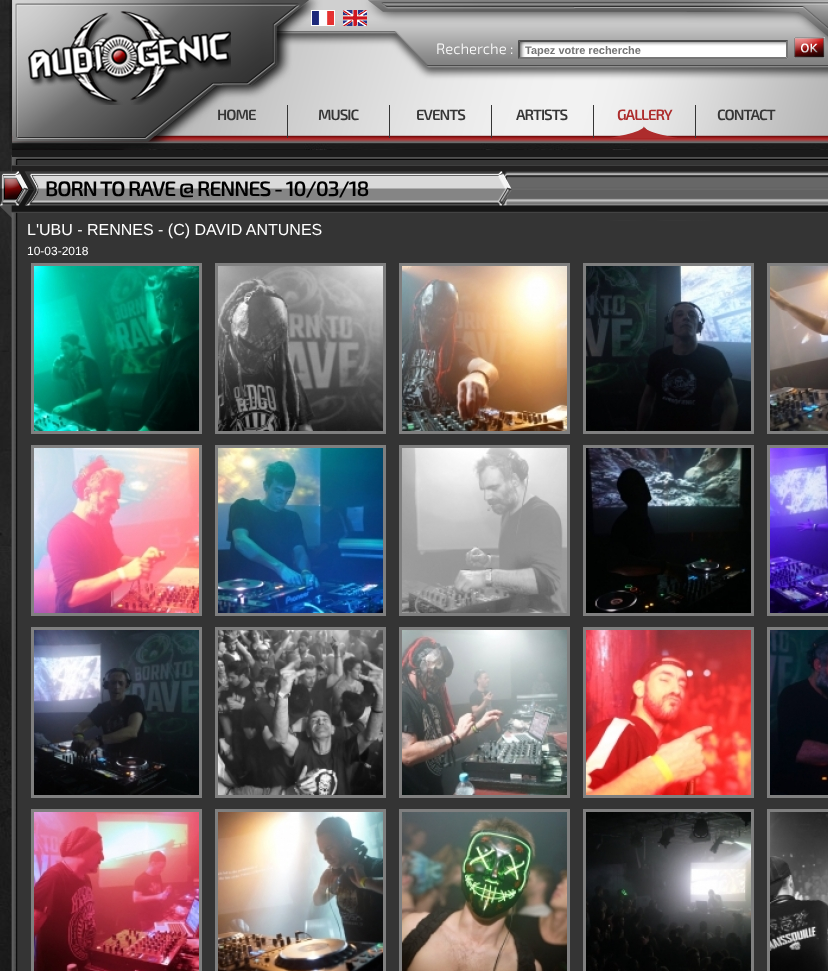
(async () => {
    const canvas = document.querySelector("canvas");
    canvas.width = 828;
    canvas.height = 971;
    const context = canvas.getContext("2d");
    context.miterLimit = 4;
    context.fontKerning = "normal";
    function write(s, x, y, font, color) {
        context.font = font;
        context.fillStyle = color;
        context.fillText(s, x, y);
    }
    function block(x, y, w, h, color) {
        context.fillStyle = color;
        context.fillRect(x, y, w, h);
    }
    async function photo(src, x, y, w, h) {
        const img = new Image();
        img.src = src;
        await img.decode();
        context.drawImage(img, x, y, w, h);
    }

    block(0, 0, 828, 971, "rgb(255, 255, 255)");
    await photo("media/1.png", 0, 0, 828, 971);
    await photo("media/2.png", 9, 0, 819, 150);
    await photo("media/3.png", 28, 11, 203, 94);
    await photo("media/4.png", 28, 11, 203, 94);
    await photo("media/5.png", 311, 10, 24, 16);
    await photo("media/6.png", 343, 10, 24, 16);
    write("Recherche :", 436, 54, "300 15px 'Exo 2'", "rgb(255, 255, 255)");
    await photo("media/7.png", 520, 40, 268, 19);
    context.fillStyle = "rgb(79, 79, 79)";
    context.beginPath();
    context.moveTo(518, 40);
    context.lineTo(788, 40);
    context.lineTo(786, 42);
    context.lineTo(520, 42);
    context.closePath();
    context.fill();
    context.fillStyle = "rgb(118, 118, 118)";
    context.beginPath();
    context.moveTo(788, 40);
    context.lineTo(788, 59);
    context.lineTo(786, 57);
    context.lineTo(786, 42);
    context.closePath();
    context.fill();
    context.beginPath();
    context.moveTo(788, 59);
    context.lineTo(518, 59);
    context.lineTo(520, 57);
    context.lineTo(786, 57);
    context.closePath();
    context.fill();
    context.fillStyle = "rgb(79, 79, 79)";
    context.beginPath();
    context.moveTo(518, 59);
    context.lineTo(518, 40);
    context.lineTo(520, 42);
    context.lineTo(520, 57);
    context.closePath();
    context.fill();
    write("Tapez votre recherche", 525, 54, "bold 11px Liberation Sans", "rgb(117, 117, 117)");
    await photo("media/8.png", 794, 37, 31, 21);
    block(287, 105, 1, 33, "rgb(54, 54, 54)");
    context.letterSpacing = "-1px";
    write("HOME", 217, 120, "600 15px 'Exo 2'", "rgb(54, 54, 54)");
    block(389, 105, 1, 33, "rgb(54, 54, 54)");
    write("MUSIC", 318, 120, "600 15px 'Exo 2'", "rgb(54, 54, 54)");
    block(491, 105, 1, 33, "rgb(54, 54, 54)");
    write("EVENTS", 416, 120, "600 15px 'Exo 2'", "rgb(54, 54, 54)");
    block(593, 105, 1, 33, "rgb(54, 54, 54)");
    write("ARTISTS", 516, 120, "600 15px 'Exo 2'", "rgb(54, 54, 54)");
    await photo("media/9.png", 610, 126, 67, 12);
    block(695, 105, 1, 33, "rgb(54, 54, 54)");
    write("GALLERY", 617, 120, "600 15px 'Exo 2'", "rgb(173, 44, 44)");
    write("CONTACT", 717, 120, "600 15px 'Exo 2'", "rgb(54, 54, 54)");
    await photo("media/10.png", 0, 150, 828, 71);
    write("BORN TO RAVE @ RENNES - 10/03/18", 45, 196, "600 21px 'Exo 2'", "rgb(0, 0, 0)");
    await photo("media/11.png", 11, 221, 817, 750);
    context.letterSpacing = "0px";
    write("L'UBU - RENNES - (C) DAVID ANTUNES", 27, 235, "16px Liberation Sans", "rgb(255, 255, 255)");
    write("10-03-2018", 27, 255, "12px Liberation Sans", "rgb(255, 255, 255)");
    context.strokeStyle = "rgb(127, 127, 127)";
    context.lineWidth = 3;
    context.strokeRect(32.5, 264.5, 168, 168);
    await photo("media/12.png", 34, 266, 165, 165);
    context.strokeRect(216.5, 264.5, 168, 168);
    await photo("media/13.png", 218, 266, 165, 165);
    context.strokeRect(400.5, 264.5, 168, 168);
    await photo("media/14.png", 402, 266, 165, 165);
    context.strokeRect(584.5, 264.5, 168, 168);
    await photo("media/15.png", 586, 266, 165, 165);
    context.strokeRect(768.5, 264.5, 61, 168);
    await photo("media/16.png", 770, 266, 58, 165);
    context.strokeRect(32.5, 446.5, 168, 168);
    await photo("media/17.png", 34, 448, 165, 165);
    context.strokeRect(216.5, 446.5, 168, 168);
    await photo("media/18.png", 218, 448, 165, 165);
    context.strokeRect(400.5, 446.5, 168, 168);
    await photo("media/19.png", 402, 448, 165, 165);
    context.strokeRect(584.5, 446.5, 168, 168);
    await photo("media/20.png", 586, 448, 165, 165);
    context.strokeRect(768.5, 446.5, 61, 168);
    await photo("media/21.png", 770, 448, 58, 165);
    context.strokeRect(32.5, 628.5, 168, 168);
    await photo("media/22.png", 34, 630, 165, 165);
    context.strokeRect(216.5, 628.5, 168, 168);
    await photo("media/23.png", 218, 630, 165, 165);
    context.strokeRect(400.5, 628.5, 168, 168);
    await photo("media/24.png", 402, 630, 165, 165);
    context.strokeRect(584.5, 628.5, 168, 168);
    await photo("media/25.png", 586, 630, 165, 165);
    context.strokeRect(768.5, 628.5, 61, 168);
    await photo("media/26.png", 770, 630, 58, 165);
    context.strokeRect(32.5, 810.5, 168, 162);
    await photo("media/27.png", 34, 812, 165, 159);
    context.strokeRect(216.5, 810.5, 168, 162);
    await photo("media/28.png", 218, 812, 165, 159);
    context.strokeRect(400.5, 810.5, 168, 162);
    await photo("media/29.png", 402, 812, 165, 159);
    context.strokeRect(584.5, 810.5, 168, 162);
    await photo("media/30.png", 586, 812, 165, 159);
    context.strokeRect(768.5, 810.5, 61, 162);
    await photo("media/31.png", 770, 812, 58, 159);
})();
